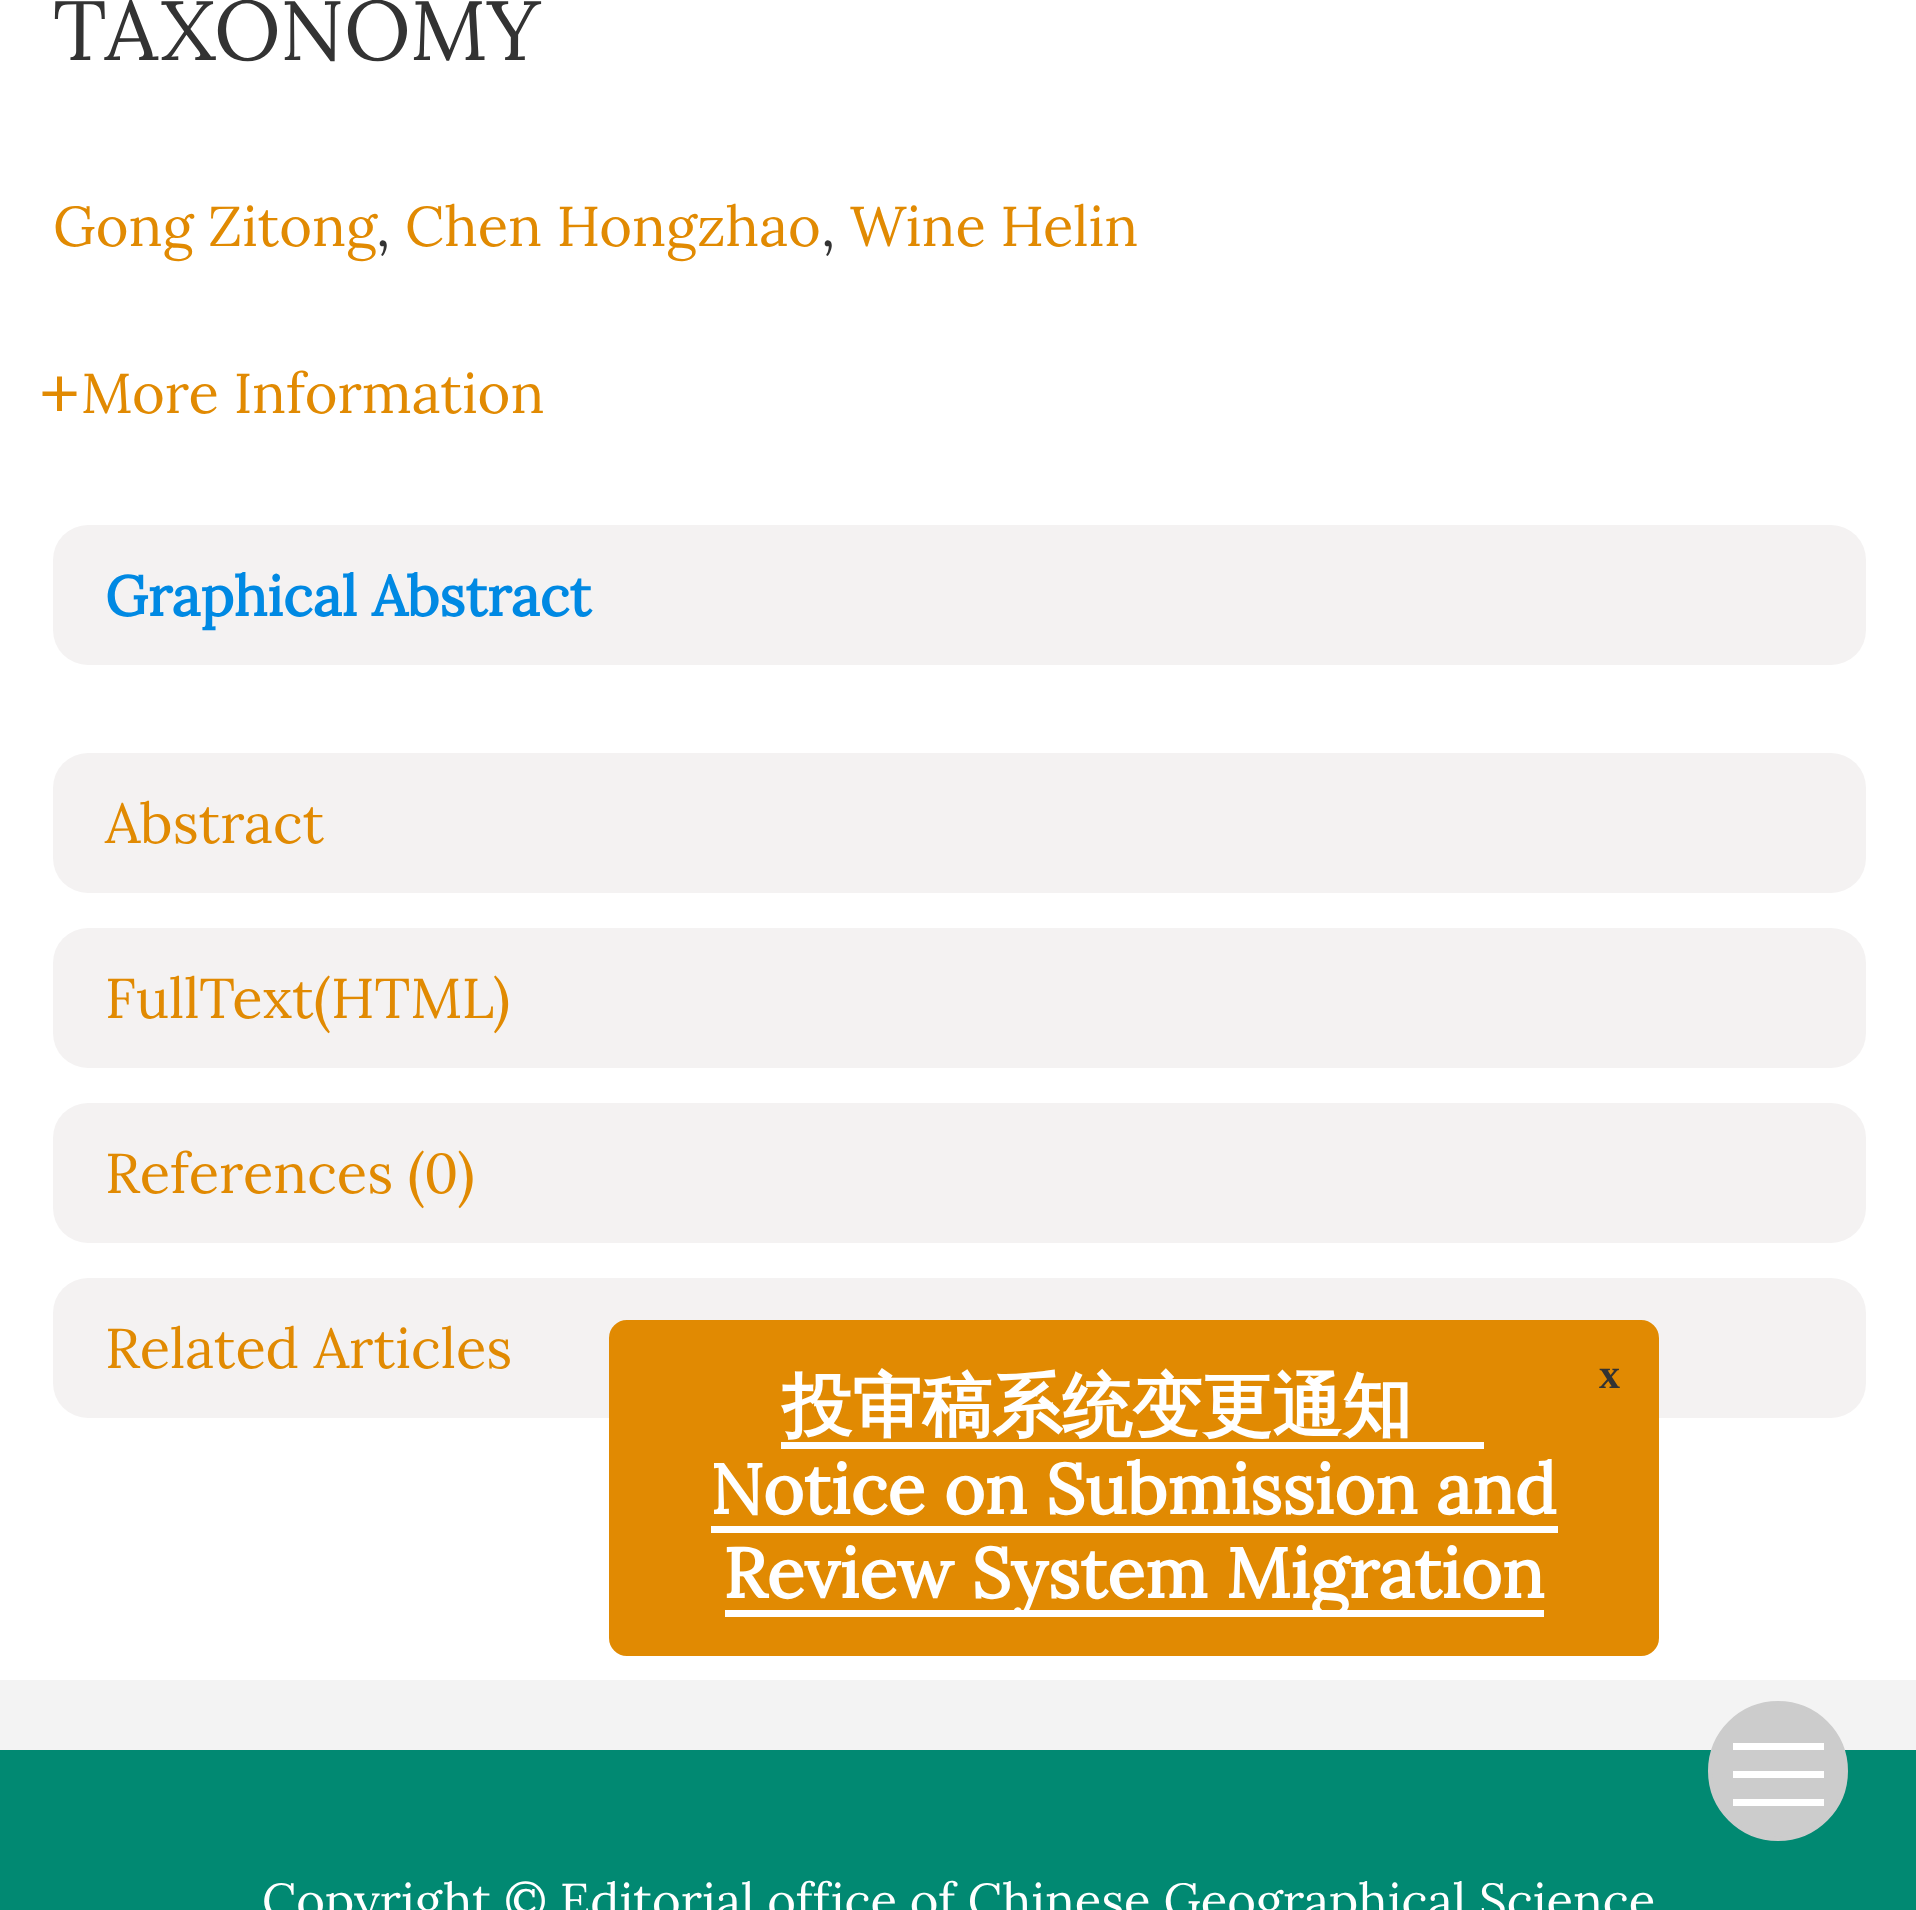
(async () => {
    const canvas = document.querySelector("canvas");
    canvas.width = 1916;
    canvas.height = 1910;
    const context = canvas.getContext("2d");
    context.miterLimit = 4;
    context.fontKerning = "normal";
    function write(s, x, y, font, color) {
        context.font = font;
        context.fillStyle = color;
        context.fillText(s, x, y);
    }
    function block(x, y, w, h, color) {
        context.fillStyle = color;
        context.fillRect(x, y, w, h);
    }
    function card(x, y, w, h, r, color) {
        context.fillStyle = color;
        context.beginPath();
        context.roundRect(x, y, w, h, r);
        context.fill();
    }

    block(0, 0, 1916, 1910, "rgb(243, 243, 243)");
    block(0, 0, 1916, 1680, "rgb(255, 255, 255)");
    write("TAXONOMY", 53, 60, "84px Lora", "rgb(51, 51, 51)");
    write("Gong Zitong", 53, 246, "56px Lora", "rgb(225, 138, 2)");
    write(",", 376, 246, "56px Lora", "rgb(51, 51, 51)");
    write("Chen Hongzhao", 405, 246, "56px Lora", "rgb(225, 138, 2)");
    write(",", 821, 246, "56px Lora", "rgb(51, 51, 51)");
    write("Wine Helin", 850, 246, "56px Lora", "rgb(225, 138, 2)");
    context.beginPath();
    context.moveTo(42.5, 391.5);
    context.lineTo(76.5, 391.5);
    context.lineTo(76.5, 396);
    context.lineTo(42.5, 396);
    context.closePath();
    context.moveTo(57, 376.5);
    context.lineTo(62, 376.5);
    context.lineTo(62, 411);
    context.lineTo(57, 411);
    context.closePath();
    context.fill();
    write("More Information", 81, 413, "56px Lora", "rgb(225, 138, 2)");
    card(53, 525, 1813, 140, 35, "rgb(244, 242, 242)");
    write("Graphical Abstract", 105, 616, "bold 56px Lora", "rgb(0, 137, 227)");
    card(53, 753, 1813, 140, 35, "rgb(244, 242, 242)");
    write("Abstract", 105, 843, "56px Lora", "rgb(225, 138, 2)");
    card(53, 928, 1813, 140, 35, "rgb(244, 242, 242)");
    write("FullText(HTML)", 105, 1018, "56px Lora", "rgb(225, 138, 2)");
    card(53, 1103, 1813, 140, 35, "rgb(244, 242, 242)");
    write("References (0)", 105, 1193, "56px Lora", "rgb(225, 138, 2)");
    card(53, 1278, 1813, 140, 35, "rgb(244, 242, 242)");
    write("Related Articles", 105, 1368, "56px Lora", "rgb(225, 138, 2)");
    block(0, 1750, 1916, 160, "rgb(1, 137, 114)");
    context.fillStyle = "rgb(204, 204, 204)";
    context.beginPath();
    context.arc(1778, 1771, 68, 0, Math.PI * 2);
    context.fill();
    context.strokeStyle = "rgb(204, 204, 204)";
    context.lineWidth = 4;
    context.stroke();
    block(1733, 1743, 91, 7, "rgb(255, 255, 255)");
    block(1733, 1771, 91, 7, "rgb(255, 255, 255)");
    block(1733, 1799, 91, 7, "rgb(255, 255, 255)");
    context.fillStyle = "rgb(225, 138, 2)";
    context.beginPath();
    context.roundRect(611, 1322, 1046, 332, 16);
    context.fill();
    context.strokeStyle = "rgb(225, 138, 2)";
    context.stroke();
    write("投审稿系统变更通知", 782, 1430, "bold 70px WenQuanYi Zen Hei", "rgb(255, 255, 255)");
    block(781, 1442, 703, 7, "rgb(255, 255, 255)");
    write("Notice on Submission and", 710, 1514, "bold 70px Lora", "rgb(255, 255, 255)");
    block(711, 1526, 847, 7, "rgb(255, 255, 255)");
    block(725, 1610, 819, 7, "rgb(255, 255, 255)");
    write("Review System Migration", 723, 1598, "bold 70px Lora", "rgb(255, 255, 255)");
    write("x", 1599, 1388, "bold 42px Liberation Serif", "rgb(51, 51, 51)");
    write("Copyright © Editorial office of Chinese Geographical Science", 262, 1918, "49px Lora", "rgb(255, 255, 255)");
})();
